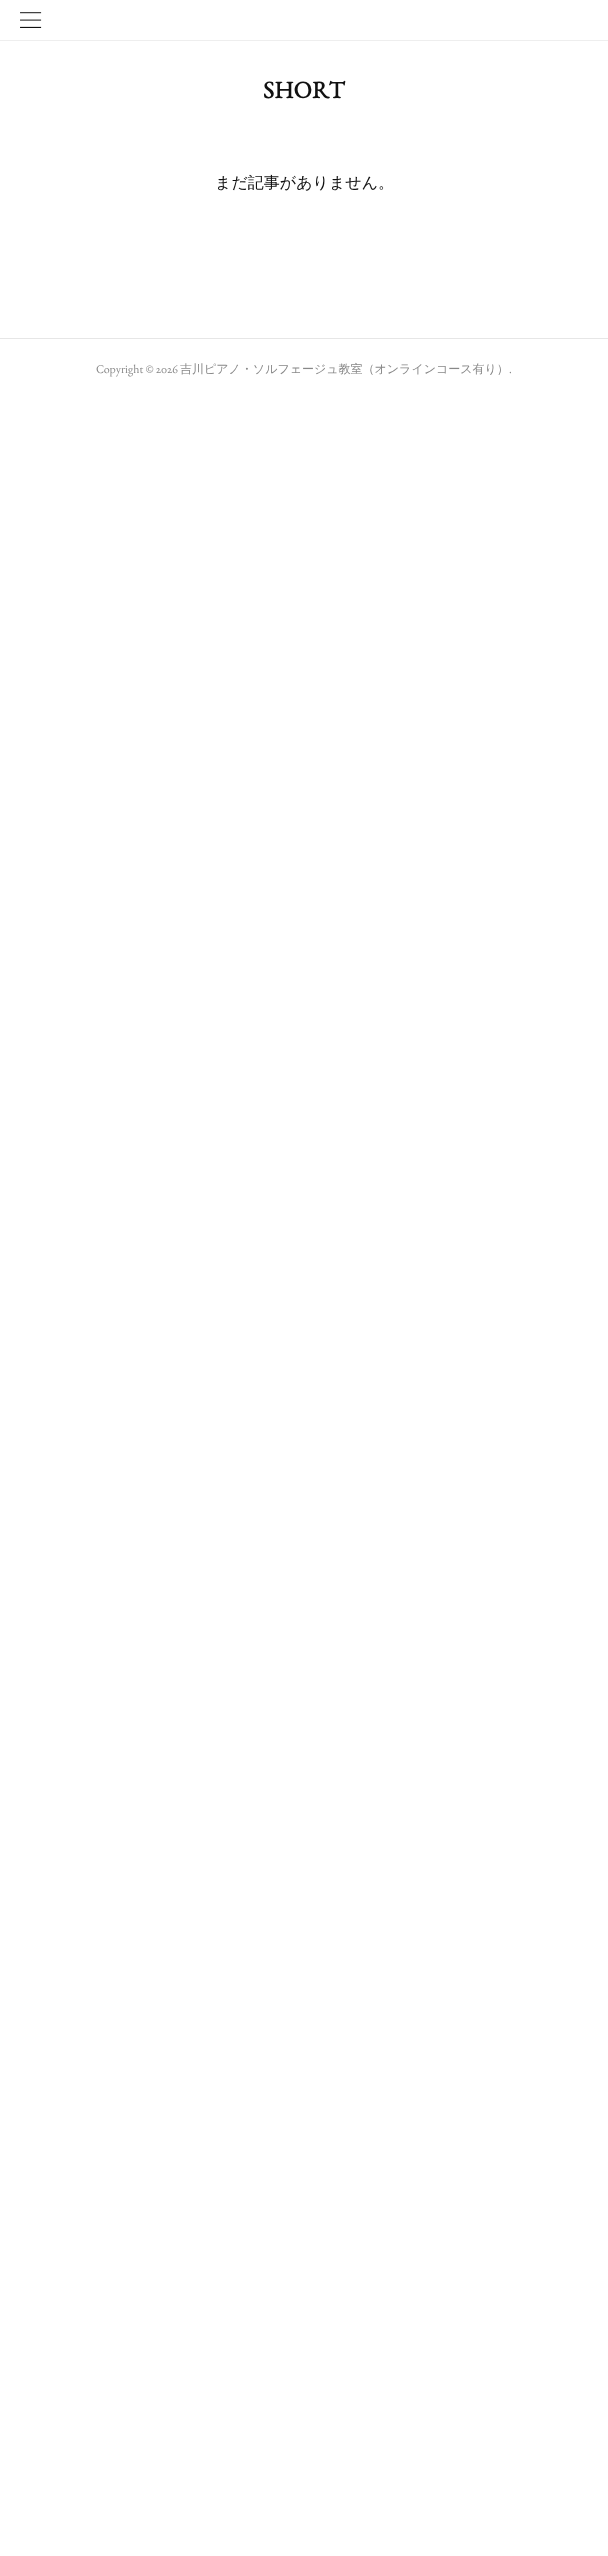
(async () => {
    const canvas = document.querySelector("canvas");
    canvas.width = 608;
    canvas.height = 2556;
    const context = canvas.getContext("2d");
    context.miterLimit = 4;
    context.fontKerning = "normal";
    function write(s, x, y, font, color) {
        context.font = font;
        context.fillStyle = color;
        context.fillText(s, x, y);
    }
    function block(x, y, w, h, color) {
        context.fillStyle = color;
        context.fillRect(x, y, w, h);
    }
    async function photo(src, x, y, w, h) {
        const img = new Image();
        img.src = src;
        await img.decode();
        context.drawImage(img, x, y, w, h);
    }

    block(0, 0, 608, 2556, "rgb(255, 255, 255)");
    block(0, 40, 608, 1, "rgb(238, 238, 238)");
    await photo("media/1.png", 20, 12, 22, 16);
    write("SHORT", 263, 98, "bold 24px EB Garamond", "rgb(17, 17, 17)");
    write("まだ記事がありません。", 215, 188, "500 16px WenQuanYi Zen Hei", "rgb(17, 17, 17)");
    block(0, 338, 608, 1, "rgb(230, 230, 230)");
    write("Copyright © 2026", 96, 373, "12px EB Garamond", "rgb(136, 136, 136)");
    write("吉川ピアノ・ソルフェージュ教室（オンラインコース有り）", 180, 373, "500 12px WenQuanYi Zen Hei", "rgb(136, 136, 136)");
    write(".", 509, 373, "12px EB Garamond", "rgb(136, 136, 136)");
})();
